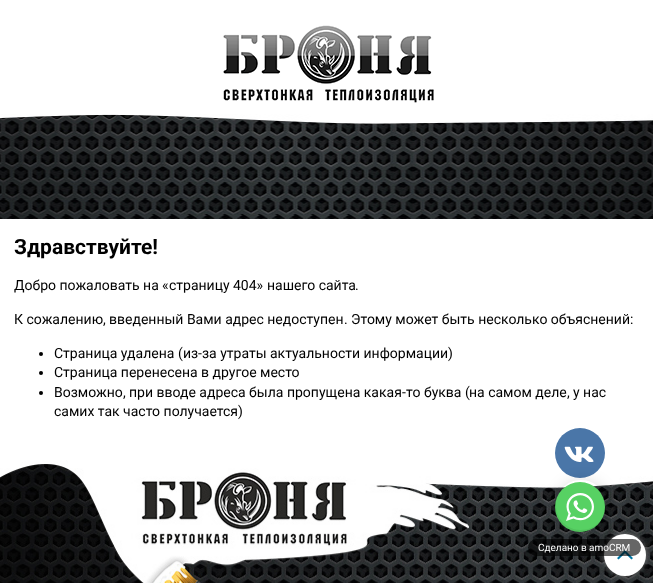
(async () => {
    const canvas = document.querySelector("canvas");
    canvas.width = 653;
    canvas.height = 583;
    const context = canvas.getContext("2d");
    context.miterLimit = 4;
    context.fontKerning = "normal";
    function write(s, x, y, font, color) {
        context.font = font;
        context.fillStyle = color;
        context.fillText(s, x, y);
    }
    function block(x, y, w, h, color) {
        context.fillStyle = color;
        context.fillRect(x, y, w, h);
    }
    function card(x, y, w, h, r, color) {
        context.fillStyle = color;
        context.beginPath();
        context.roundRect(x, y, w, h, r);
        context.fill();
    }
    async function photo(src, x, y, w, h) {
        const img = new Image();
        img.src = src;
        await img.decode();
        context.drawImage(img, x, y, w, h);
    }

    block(0, 0, 653, 583, "rgb(255, 255, 255)");
    await photo("media/1.png", 0, 0, 653, 219);
    await photo("media/2.png", 223, 25, 211, 78);
    write("Здравствуйте!", 14, 254, "bold 21px Roboto", "rgb(0, 0, 0)");
    write("Добро пожаловать на", 14, 290, "14px Roboto", "rgb(0, 0, 0)");
    write("«", 162, 290, "14px 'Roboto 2'", "rgb(0, 0, 0)");
    write("страницу", 169, 290, "14px Roboto", "rgb(0, 0, 0)");
    write("404»", 233, 290, "14px 'Roboto 2'", "rgb(0, 0, 0)");
    write("нашего сайта", 267, 290, "14px Roboto", "rgb(0, 0, 0)");
    write(".", 355, 290, "14px 'Roboto 2'", "rgb(0, 0, 0)");
    write("К сожалению", 14, 324, "14px Roboto", "rgb(0, 0, 0)");
    write(",", 103, 324, "14px 'Roboto 2'", "rgb(0, 0, 0)");
    write("введенный Вами адрес недоступен", 109, 324, "14px Roboto", "rgb(0, 0, 0)");
    write(".", 344, 324, "14px 'Roboto 2'", "rgb(0, 0, 0)");
    write("Этому может быть несколько объяснений", 351, 324, "14px Roboto", "rgb(0, 0, 0)");
    write(":", 630, 324, "14px 'Roboto 2'", "rgb(0, 0, 0)");
    context.beginPath();
    context.arc(41, 354, 2, 0, Math.PI * 2);
    context.fill();
    write("Страница удалена", 54, 358, "14px Roboto", "rgb(0, 0, 0)");
    write("(", 178, 358, "14px 'Roboto 2'", "rgb(0, 0, 0)");
    write("из", 183, 358, "14px Roboto", "rgb(0, 0, 0)");
    write("-", 198, 358, "14px 'Roboto 2'", "rgb(0, 0, 0)");
    write("за утраты актуальности информации", 202, 358, "14px Roboto", "rgb(0, 0, 0)");
    write(")", 448, 358, "14px 'Roboto 2'", "rgb(0, 0, 0)");
    context.beginPath();
    context.arc(41, 373, 2, 0, Math.PI * 2);
    context.fill();
    write("Страница перенесена в другое место", 54, 377, "14px Roboto", "rgb(0, 0, 0)");
    context.beginPath();
    context.arc(41, 393, 2, 0, Math.PI * 2);
    context.fill();
    write("Возможно", 54, 397, "14px Roboto", "rgb(0, 0, 0)");
    write("при вводе адреса была пропущена какая", 129, 397, "14px Roboto", "rgb(0, 0, 0)");
    write("-", 402, 397, "14px 'Roboto 2'", "rgb(0, 0, 0)");
    write("то буква", 406, 397, "14px Roboto", "rgb(0, 0, 0)");
    write("(", 465, 397, "14px 'Roboto 2'", "rgb(0, 0, 0)");
    write("на самом деле", 469, 397, "14px Roboto", "rgb(0, 0, 0)");
    write("у нас", 573, 397, "14px Roboto", "rgb(0, 0, 0)");
    write(",", 123, 397, "14px 'Roboto 2'", "rgb(0, 0, 0)");
    write(",", 567, 397, "14px 'Roboto 2'", "rgb(0, 0, 0)");
    write("самих так часто получается", 54, 416, "14px Roboto", "rgb(0, 0, 0)");
    write(")", 238, 416, "14px 'Roboto 2'", "rgb(0, 0, 0)");
    await photo("media/3.png", 0, 460, 653, 123);
    context.fillStyle = "rgb(119, 119, 119)";
    context.filter = "blur(2.5px)";
    context.beginPath();
    context.roundRect(604, 534, 42, 42, 21);
    context.fill();
    context.filter = "none";
    context.fillStyle = "rgb(255, 255, 255)";
    context.beginPath();
    context.arc(625, 555, 21, 0, Math.PI * 2);
    context.fill();
    await photo("media/4.png", 617, 550, 16, 10);
    await photo("media/5.png", 555, 428, 50, 104);
    card(528, 539, 113, 17, 8.5, "rgba(0, 0, 0, 0.6)");
    context.save();
    context.beginPath();
    context.moveTo(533, 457);
    context.lineTo(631, 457);
    context.lineTo(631, 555);
    context.lineTo(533, 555);
    context.closePath();
    context.moveTo(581, 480);
    context.bezierCurveTo(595, 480, 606, 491, 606, 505);
    context.bezierCurveTo(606, 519, 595, 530, 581, 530);
    context.bezierCurveTo(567, 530, 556, 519, 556, 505);
    context.bezierCurveTo(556, 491, 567, 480, 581, 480);
    context.closePath();
    context.clip("evenodd");
    context.fillStyle = "rgba(0, 0, 0, 0.15)";
    context.filter = "blur(7.5px)";
    context.beginPath();
    context.roundRect(557, 481, 50, 50, 25);
    context.fill();
    context.filter = "none";
    context.restore();
    write("Сделано в", 538, 551, "10px Roboto", "rgb(255, 255, 255)");
    write("amoCRM", 589, 551, "10px 'Roboto 2'", "rgb(255, 255, 255)");
})();
